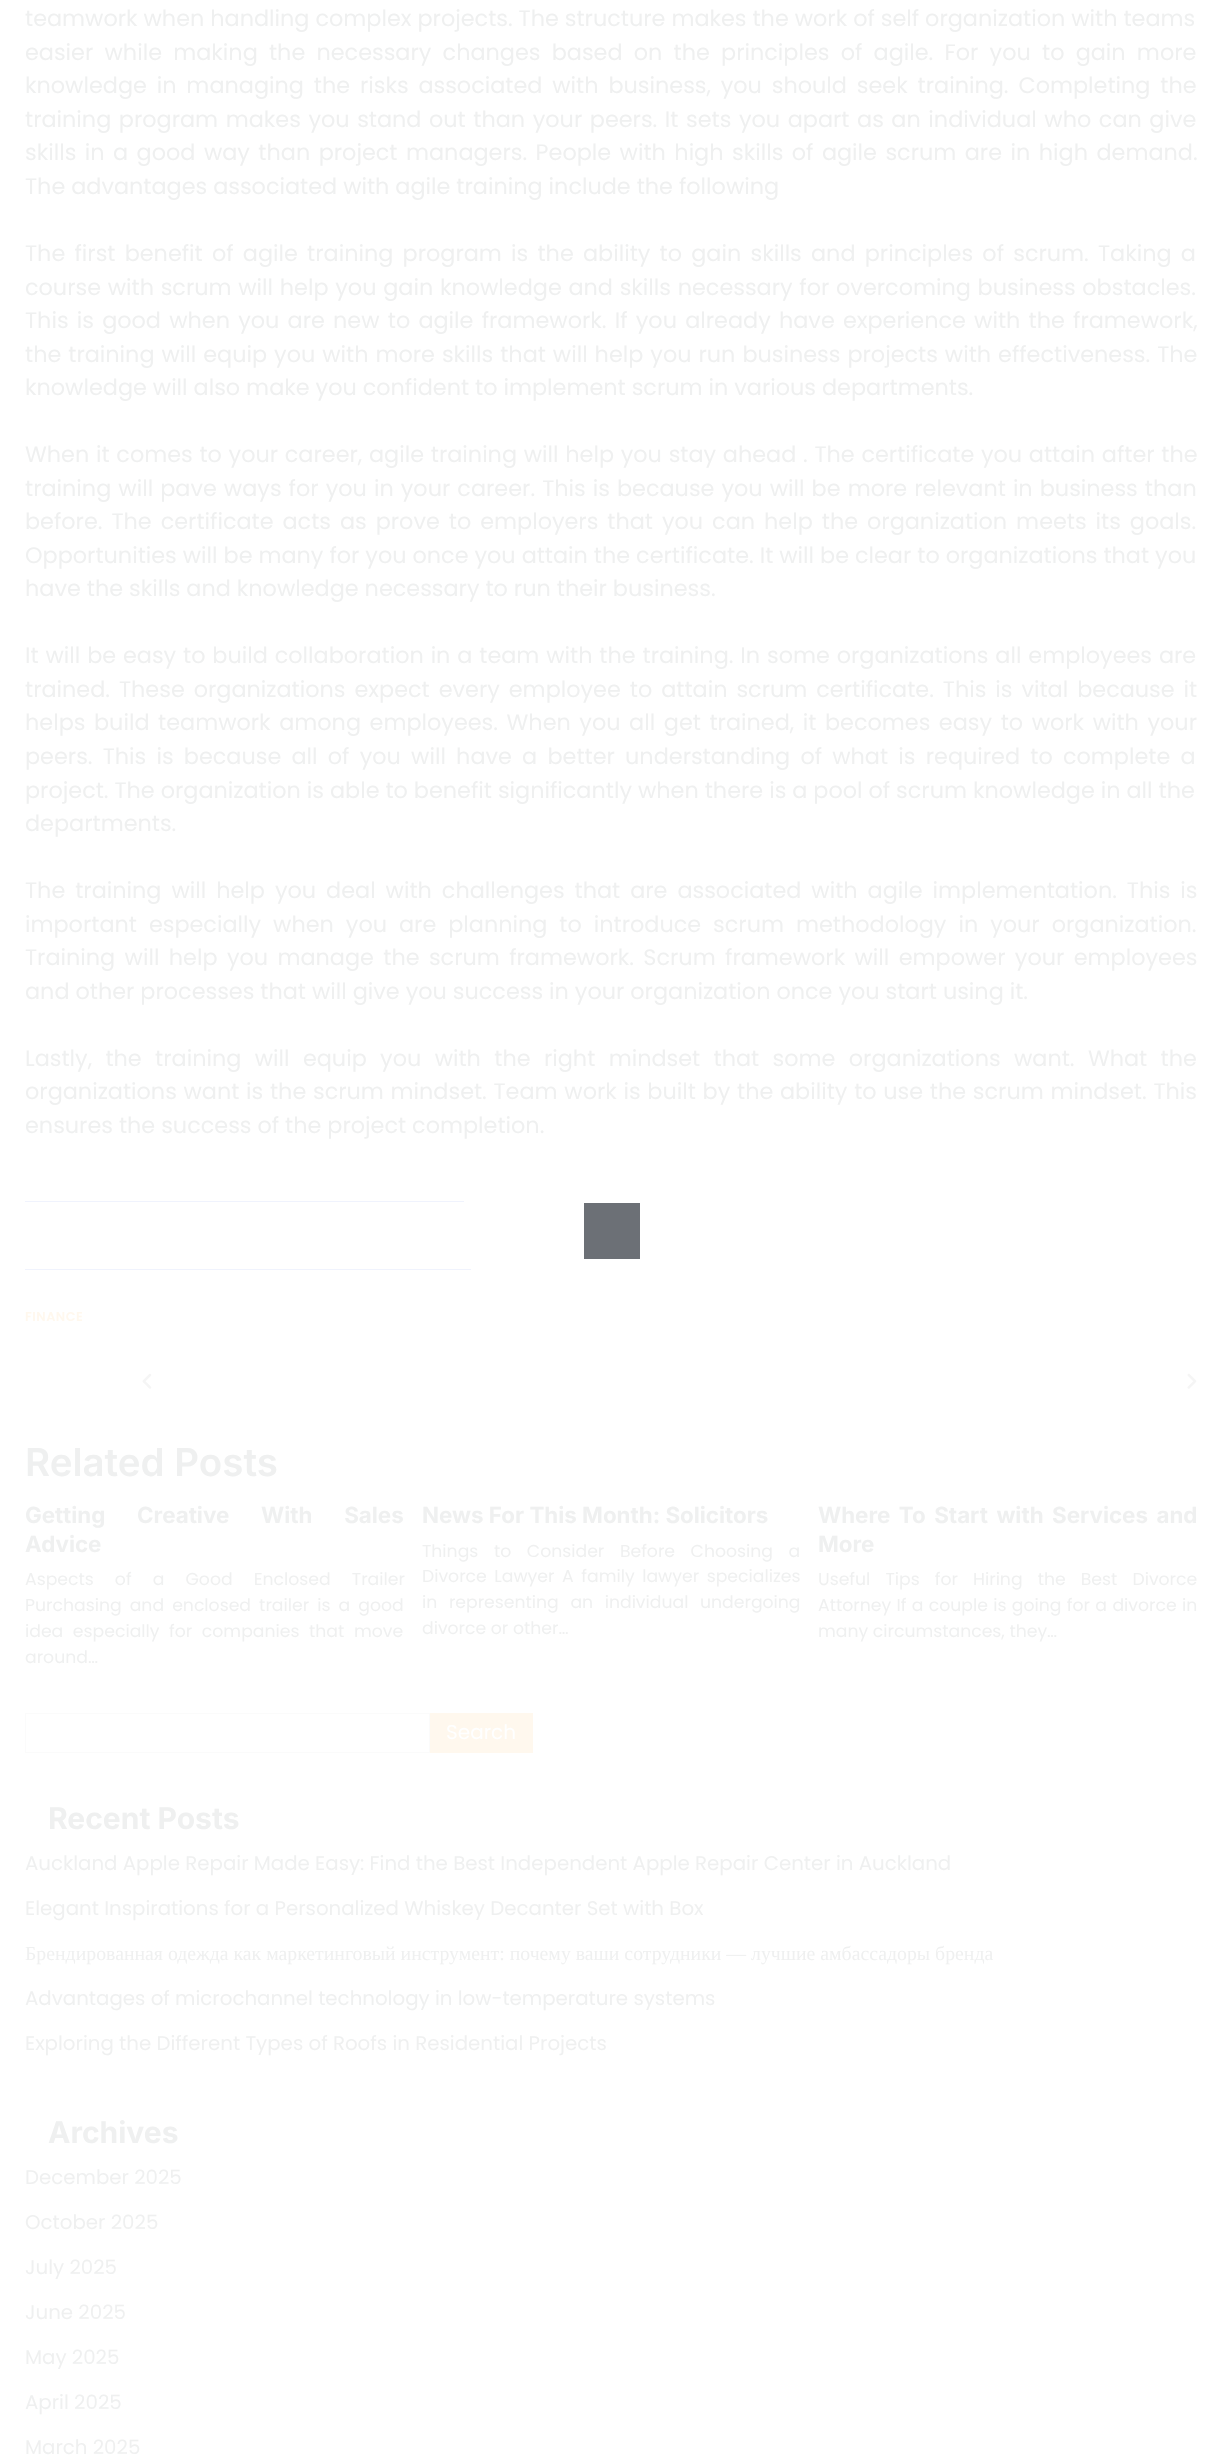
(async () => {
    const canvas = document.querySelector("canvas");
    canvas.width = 1222;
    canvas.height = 2459;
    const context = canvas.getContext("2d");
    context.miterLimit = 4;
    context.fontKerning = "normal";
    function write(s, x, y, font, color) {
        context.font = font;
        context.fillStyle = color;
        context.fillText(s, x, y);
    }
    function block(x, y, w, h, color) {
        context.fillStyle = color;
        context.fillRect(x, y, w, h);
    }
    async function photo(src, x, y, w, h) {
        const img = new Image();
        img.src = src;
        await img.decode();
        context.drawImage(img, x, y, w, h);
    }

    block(0, 0, 1222, 2459, "rgb(255, 255, 255)");
    write("teamwork when handling complex projects. The structure makes the work of self organization with teams", 25, 26, "22.35px Poppins", "rgb(239, 240, 240)");
    context.wordSpacing = "5.25px";
    write("easier while making the necessary changes based on the principles of agile. For you to gain more", 25, 60, "22.35px Poppins", "rgb(239, 240, 240)");
    context.wordSpacing = "3.9px";
    write("knowledge in managing the risks associated with business, you should seek training. Completing the", 25, 93, "22.35px Poppins", "rgb(239, 240, 240)");
    context.wordSpacing = "1.6px";
    write("training program makes you stand out than your peers. It sets you apart as an individual who can give", 25, 127, "22.35px Poppins", "rgb(239, 240, 240)");
    context.wordSpacing = "2.5px";
    write("skills in a good way than project managers. People with high skills of agile scrum are in high demand.", 25, 160, "22.35px Poppins", "rgb(239, 240, 240)");
    context.wordSpacing = "0px";
    write("The advantages associated with agile training include the following", 25, 194, "22.35px Poppins", "rgb(239, 240, 240)");
    context.wordSpacing = "3.25px";
    write("The first benefit of agile training program is the ability to gain skills and principles of scrum. Taking a", 25, 261, "22.35px Poppins", "rgb(239, 240, 240)");
    context.wordSpacing = "0.75px";
    write("course with scrum will help you gain knowledge and skills necessary for overcoming business obstacles.", 25, 295, "22.35px Poppins", "rgb(239, 240, 240)");
    context.wordSpacing = "2.25px";
    write("This is good when you are new to agile framework. If you already have experience with the framework,", 25, 328, "22.35px Poppins", "rgb(239, 240, 240)");
    context.wordSpacing = "1px";
    write("the training will equip you with more skills that will help you run business projects with effectiveness. The", 25, 362, "22.35px Poppins", "rgb(239, 240, 240)");
    context.wordSpacing = "0px";
    write("knowledge will also make you confident to implement scrum in various departments.", 25, 395, "22.35px Poppins", "rgb(239, 240, 240)");
    context.wordSpacing = "0.75px";
    write("When it comes to your career, agile training will help you stay ahead . The certificate you attain after the", 25, 462, "22.35px Poppins", "rgb(239, 240, 240)");
    context.wordSpacing = "1.1px";
    write("training will pave ways for you in your career. This is because you will be more relevant in business than", 25, 496, "22.35px Poppins", "rgb(239, 240, 240)");
    context.wordSpacing = "3px";
    write("before. The certificate acts as prove to employers that you can help the organization meets its goals.", 25, 529, "22.35px Poppins", "rgb(239, 240, 240)");
    context.wordSpacing = "0px";
    write("Opportunities will be many for you once you attain the certificate. It will be clear to organizations that you", 25, 563, "22.35px Poppins", "rgb(239, 240, 240)");
    write("have the skills and knowledge necessary to run their business.", 25, 596, "22.35px Poppins", "rgb(239, 240, 240)");
    context.wordSpacing = "0.9px";
    write("It will be easy to build collaboration in a team with the training. In some organizations all employees are", 25, 663, "22.35px Poppins", "rgb(239, 240, 240)");
    context.wordSpacing = "3px";
    write("trained. These organizations expect every employee to attain scrum certificate. This is vital because it", 25, 697, "22.35px Poppins", "rgb(239, 240, 240)");
    context.wordSpacing = "2.6px";
    write("helps build teamwork among employees. When you all get trained, it becomes easy to work with your", 25, 730, "22.35px Poppins", "rgb(239, 240, 240)");
    context.wordSpacing = "4.25px";
    write("peers. This is because all of you will have a better understanding of what is required to complete a", 25, 764, "22.35px Poppins", "rgb(239, 240, 240)");
    context.wordSpacing = "0px";
    write("project. The organization is able to benefit significantly when there is a pool of scrum knowledge in all the", 25, 798, "22.35px Poppins", "rgb(239, 240, 240)");
    write("departments.", 25, 831, "22.35px Poppins", "rgb(239, 240, 240)");
    context.wordSpacing = "4px";
    write("The training will help you deal with challenges that are associated with agile implementation. This is", 25, 898, "22.35px Poppins", "rgb(239, 240, 240)");
    context.wordSpacing = "6px";
    write("important especially when you are planning to introduce scrum methodology in your organization.", 25, 932, "22.35px Poppins", "rgb(239, 240, 240)");
    context.wordSpacing = "3.4px";
    write("Training will help you manage the scrum framework. Scrum framework will empower your employees", 25, 965, "22.35px Poppins", "rgb(239, 240, 240)");
    context.wordSpacing = "0px";
    write("and other processes that will give you success in your organization once you start using it.", 25, 999, "22.35px Poppins", "rgb(239, 240, 240)");
    context.wordSpacing = "7.4px";
    write("Lastly, the training will equip you with the right mindset that some organizations want. What the", 25, 1066, "22.35px Poppins", "rgb(239, 240, 240)");
    context.wordSpacing = "0.75px";
    write("organizations want is the scrum mindset. Team work is built by the ability to use the scrum mindset. This", 25, 1099, "22.35px Poppins", "rgb(239, 240, 240)");
    context.wordSpacing = "0px";
    write("ensures the success of the project completion.", 25, 1133, "22.35px Poppins", "rgb(239, 240, 240)");
    block(25, 1201, 439, 1, "rgb(240, 243, 253)");
    block(25, 1269, 446, 1, "rgb(240, 243, 253)");
    context.letterSpacing = "0.5px";
    write("FINANCE", 25, 1321, "600 12.75px Poppins", "rgb(255, 248, 238)");
    await photo("media/1.png", 142, 1373, 10, 16);
    await photo("media/2.png", 1187, 1373, 10, 16);
    context.letterSpacing = "0px";
    write("Related Posts", 25, 1476, "600 38.5px Inter", "rgb(239, 240, 240)");
    context.wordSpacing = "26.5px";
    write("Getting Creative With Sales", 25, 1523, "bold 22.35px Inter", "rgb(239, 240, 240)");
    context.wordSpacing = "0px";
    write("Advice", 25, 1552, "bold 22.35px Inter", "rgb(239, 240, 240)");
    context.wordSpacing = "16.5px";
    write("Aspects of a Good Enclosed Trailer", 25, 1585, "17.25px Poppins", "rgb(239, 240, 240)");
    context.wordSpacing = "3.5px";
    write("Purchasing and enclosed trailer is a good", 25, 1611, "17.25px Poppins", "rgb(239, 240, 240)");
    context.wordSpacing = "5px";
    write("idea especially for companies that move", 25, 1637, "17.25px Poppins", "rgb(239, 240, 240)");
    context.wordSpacing = "0px";
    write("around…", 25, 1663, "17.25px Poppins", "rgb(239, 240, 240)");
    write("News For This Month: Solicitors", 422, 1523, "bold 22.35px Inter", "rgb(239, 240, 240)");
    context.wordSpacing = "11px";
    write("Things to Consider Before Choosing a", 422, 1557, "17.25px Poppins", "rgb(239, 240, 240)");
    context.wordSpacing = "3px";
    write("Divorce Lawyer A family lawyer specializes", 422, 1582, "17.25px Poppins", "rgb(239, 240, 240)");
    context.wordSpacing = "7px";
    write("in representing an individual undergoing", 422, 1608, "17.25px Poppins", "rgb(239, 240, 240)");
    context.wordSpacing = "0px";
    write("divorce or other…", 422, 1634, "17.25px Poppins", "rgb(239, 240, 240)");
    context.wordSpacing = "3.25px";
    write("Where To Start with Services and", 818, 1523, "bold 22.35px Inter", "rgb(239, 240, 240)");
    context.wordSpacing = "0px";
    write("More", 818, 1552, "bold 22.35px Inter", "rgb(239, 240, 240)");
    context.wordSpacing = "10.5px";
    write("Useful Tips for Hiring the Best Divorce", 818, 1585, "17.25px Poppins", "rgb(239, 240, 240)");
    context.wordSpacing = "0.75px";
    write("Attorney If a couple is going for a divorce in", 818, 1611, "17.25px Poppins", "rgb(239, 240, 240)");
    context.wordSpacing = "0px";
    write("many circumstances, they…", 818, 1637, "17.25px Poppins", "rgb(239, 240, 240)");
    context.strokeStyle = "rgb(251, 251, 251)";
    context.strokeRect(25.5, 1713.5, 404, 39);
    block(430, 1713, 103, 40, "rgb(255, 248, 238)");
    write("Search", 446, 1739, "20px Poppins", "rgb(255, 255, 255)");
    write("Recent Posts", 48, 1829, "bold 30px Inter", "rgb(239, 240, 240)");
    write("Auckland Apple Repair Made Easy: Find the Best Independent Apple Repair Center in Auckland", 25, 1870, "19.8px Poppins", "rgb(239, 240, 240)");
    write("Elegant Inspirations for a Personalized Whiskey Decanter Set with Box", 25, 1915, "19.8px Poppins", "rgb(239, 240, 240)");
    write("Брендированная одежда как маркетинговый инструмент: почему ваши сотрудники — лучшие амбассадоры бренда", 25, 1960, "19.8px Liberation Serif", "rgb(239, 240, 240)");
    write("Advantages of microchannel technology in low-temperature systems", 25, 2005, "19.8px Poppins", "rgb(239, 240, 240)");
    write("Exploring the Different Types of Roofs in Residential Projects", 25, 2050, "19.8px Poppins", "rgb(239, 240, 240)");
    write("Archives", 48, 2143, "bold 30px Inter", "rgb(239, 240, 240)");
    write("December 2025", 25, 2184, "19.8px Poppins", "rgb(239, 240, 240)");
    write("October 2025", 25, 2229, "19.8px Poppins", "rgb(239, 240, 240)");
    write("July 2025", 25, 2274, "19.8px Poppins", "rgb(239, 240, 240)");
    write("June 2025", 25, 2319, "19.8px Poppins", "rgb(239, 240, 240)");
    write("May 2025", 25, 2364, "19.8px Poppins", "rgb(239, 240, 240)");
    write("April 2025", 25, 2409, "19.8px Poppins", "rgb(239, 240, 240)");
    write("March 2025", 25, 2454, "19.8px Poppins", "rgb(239, 240, 240)");
    block(584, 1203, 56, 56, "rgb(108, 112, 118)");
})();
